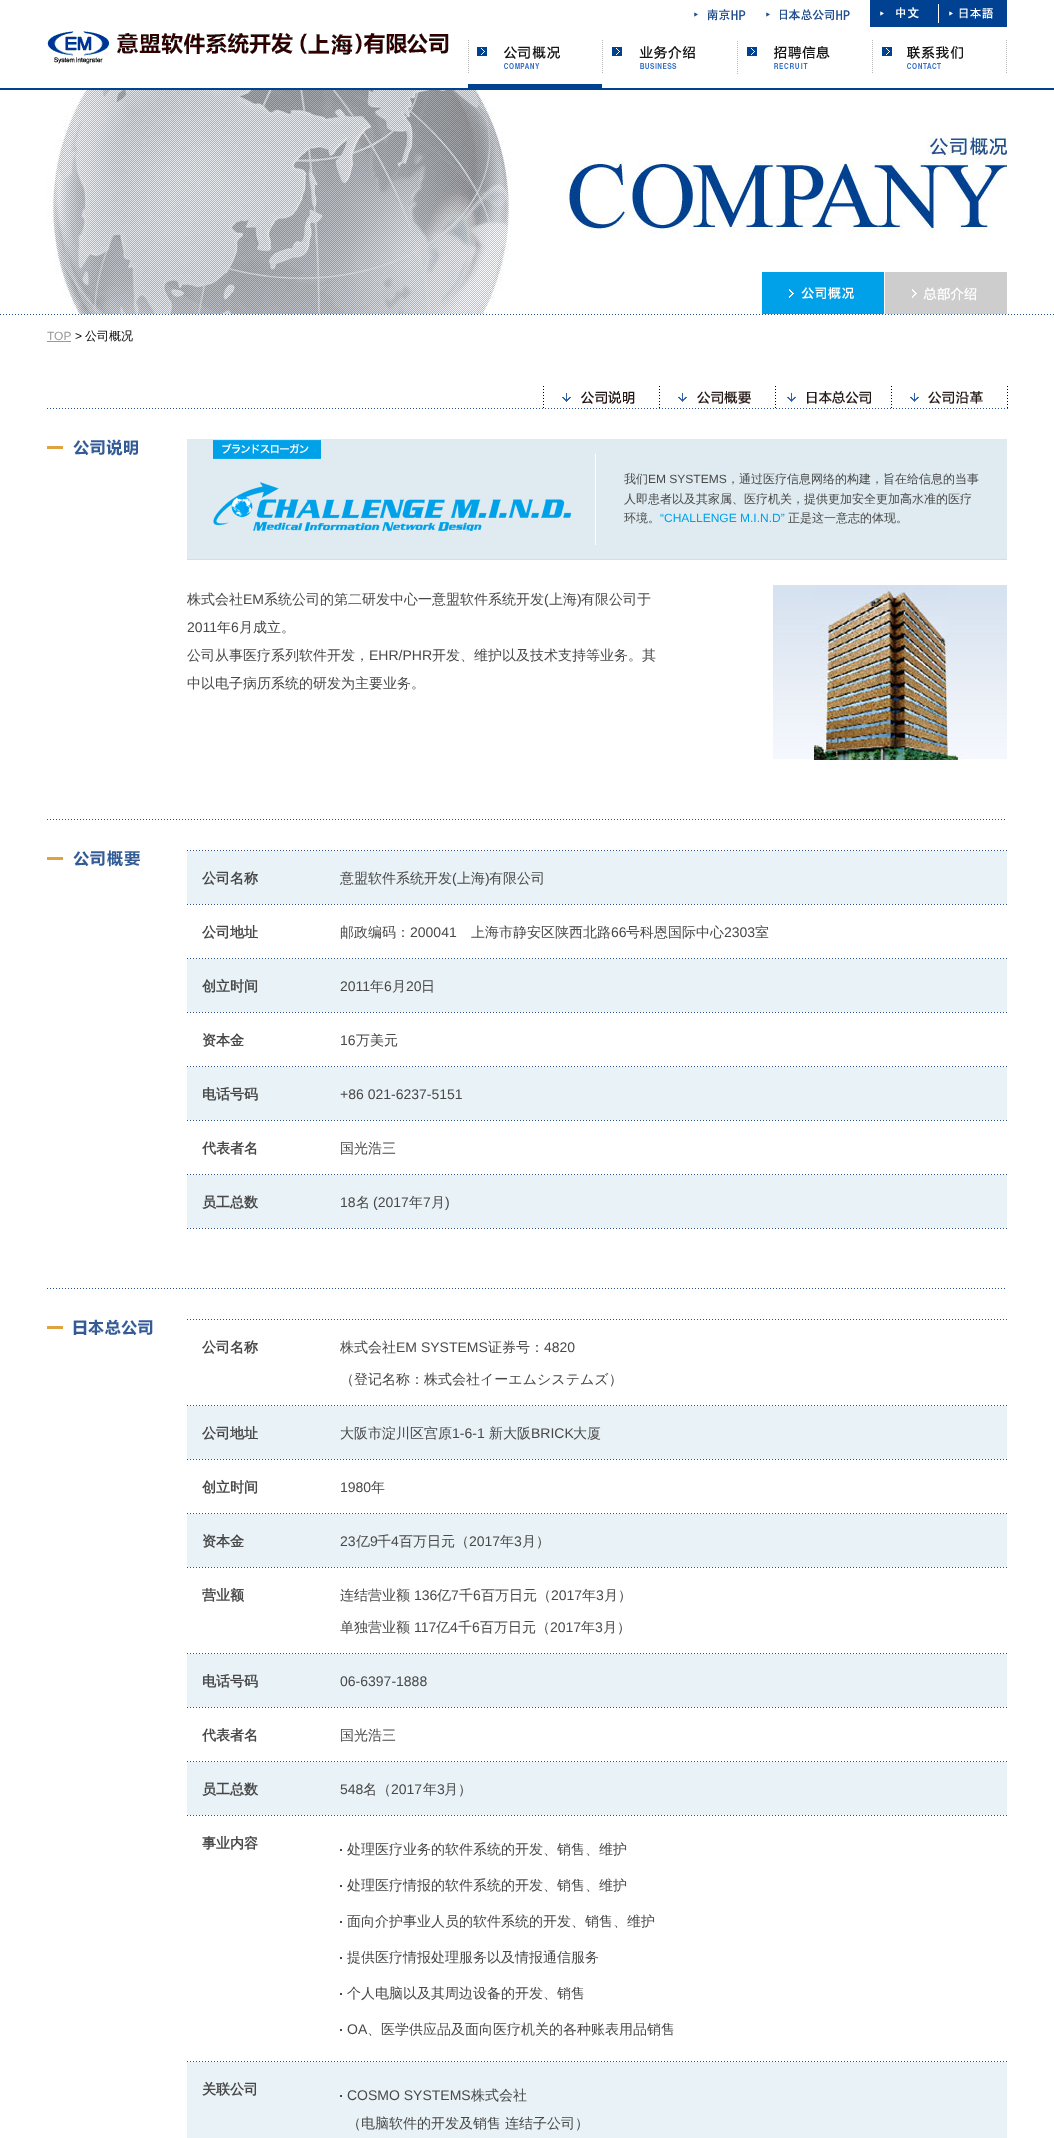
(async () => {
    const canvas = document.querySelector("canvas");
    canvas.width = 1054;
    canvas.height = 2138;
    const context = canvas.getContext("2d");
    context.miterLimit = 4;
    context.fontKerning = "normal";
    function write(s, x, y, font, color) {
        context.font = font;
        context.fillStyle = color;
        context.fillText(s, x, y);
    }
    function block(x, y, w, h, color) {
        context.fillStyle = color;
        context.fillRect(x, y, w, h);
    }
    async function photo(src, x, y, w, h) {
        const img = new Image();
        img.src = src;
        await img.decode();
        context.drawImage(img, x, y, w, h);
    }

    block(0, 0, 1054, 2138, "rgb(255, 255, 255)");
    await photo("media/1.png", 694, 0, 313, 27);
    await photo("media/2.png", 47, 31, 402, 33);
    await photo("media/3.png", 468, 40, 539, 34);
    block(468, 84, 134, 4, "rgb(0, 65, 144)");
    block(0, 88, 1054, 2, "rgb(0, 65, 144)");
    await photo("media/4.png", 0, 314, 1054, 1);
    await photo("media/5.png", 47, 90, 960, 224);
    await photo("media/6.png", 762, 272, 122, 42);
    await photo("media/7.png", 885, 272, 122, 42);
    write("TOP", 47, 340, "12px Liberation Sans", "rgb(153, 153, 153)");
    block(47, 341, 24, 1, "rgb(153, 153, 153)");
    write(">", 75, 340, "12px Liberation Sans", "rgb(0, 0, 0)");
    write("公司概况", 85, 340, "500 12px WenQuanYi Zen Hei", "rgb(0, 0, 0)");
    await photo("media/8.png", 47, 408, 961, 1);
    await photo("media/9.png", 543, 386, 465, 22);
    await photo("media/10.png", 678, 392, 73, 12);
    await photo("media/11.png", 787, 392, 84, 12);
    await photo("media/12.png", 910, 392, 73, 12);
    await photo("media/13.png", 47, 819, 958, 1);
    block(47, 446, 16, 3, "rgb(222, 162, 64)");
    await photo("media/14.png", 73, 439, 65, 17);
    block(187, 439, 820, 120, "rgb(223, 235, 240)");
    block(187, 559, 820, 1, "rgb(202, 226, 236)");
    await photo("media/15.png", 213, 440, 383, 105);
    write("我们", 624, 483, "500 12px WenQuanYi Zen Hei", "rgb(72, 72, 72)");
    write("EM SYSTEMS", 648, 483, "12px Liberation Sans", "rgb(72, 72, 72)");
    write("，通过医疗信息网络的构建，旨在给信息的当事", 727, 483, "500 12px WenQuanYi Zen Hei", "rgb(72, 72, 72)");
    write("人即患者以及其家属、医疗机关，提供更加安全更加高水准的医疗", 624, 503, "500 12px WenQuanYi Zen Hei", "rgb(72, 72, 72)");
    write("环境。", 624, 522, "500 12px WenQuanYi Zen Hei", "rgb(72, 72, 72)");
    write("“CHALLENGE M.I.N.D”", 660, 522, "12px Liberation Sans", "rgb(0, 161, 232)");
    write("正是这一意志的体现。", 788, 522, "500 12px WenQuanYi Zen Hei", "rgb(72, 72, 72)");
    await photo("media/16.png", 773, 585, 234, 175);
    write("株式会社", 187, 604, "500 14px WenQuanYi Zen Hei", "rgb(72, 72, 72)");
    write("EM", 243, 604, "14px Liberation Sans", "rgb(72, 72, 72)");
    write("系统公司的第二研发中心一意盟软件系统开发", 264, 604, "500 14px WenQuanYi Zen Hei", "rgb(72, 72, 72)");
    write("(", 544, 604, "14px Liberation Sans", "rgb(72, 72, 72)");
    write("上海", 549, 604, "500 14px WenQuanYi Zen Hei", "rgb(72, 72, 72)");
    write(")", 577, 604, "14px Liberation Sans", "rgb(72, 72, 72)");
    write("有限公司于", 581, 604, "500 14px WenQuanYi Zen Hei", "rgb(72, 72, 72)");
    write("2011", 187, 632, "14px Liberation Sans", "rgb(72, 72, 72)");
    write("年", 217, 632, "500 14px WenQuanYi Zen Hei", "rgb(72, 72, 72)");
    write("6", 231, 632, "14px Liberation Sans", "rgb(72, 72, 72)");
    write("月成立。", 239, 632, "500 14px WenQuanYi Zen Hei", "rgb(72, 72, 72)");
    write("公司从事医疗系列软件开发，", 187, 660, "500 14px WenQuanYi Zen Hei", "rgb(72, 72, 72)");
    write("EHR/PHR", 369, 660, "14px Liberation Sans", "rgb(72, 72, 72)");
    write("开发、维护以及技术支持等业务。其", 432, 660, "500 14px WenQuanYi Zen Hei", "rgb(72, 72, 72)");
    write("中以电子病历系统的研发为主要业务。", 187, 688, "500 14px WenQuanYi Zen Hei", "rgb(72, 72, 72)");
    await photo("media/13.png", 47, 1288, 958, 1);
    block(47, 857, 16, 3, "rgb(222, 162, 64)");
    await photo("media/17.png", 73, 850, 67, 17);
    await photo("media/18.png", 187, 850, 820, 1);
    block(187, 851, 820, 53, "rgb(233, 242, 246)");
    await photo("media/18.png", 187, 904, 820, 1);
    write("公司名称", 202, 883, "bold 14px WenQuanYi Zen Hei", "rgb(72, 72, 72)");
    write("意盟软件系统开发", 340, 883, "500 14px WenQuanYi Zen Hei", "rgb(72, 72, 72)");
    write("(", 452, 883, "14px Liberation Sans", "rgb(72, 72, 72)");
    write("上海", 457, 883, "500 14px WenQuanYi Zen Hei", "rgb(72, 72, 72)");
    write(")", 485, 883, "14px Liberation Sans", "rgb(72, 72, 72)");
    write("有限公司", 489, 883, "500 14px WenQuanYi Zen Hei", "rgb(72, 72, 72)");
    await photo("media/18.png", 187, 958, 820, 1);
    write("公司地址", 202, 937, "bold 14px WenQuanYi Zen Hei", "rgb(72, 72, 72)");
    write("邮政编码：", 340, 937, "500 14px WenQuanYi Zen Hei", "rgb(72, 72, 72)");
    write("200041", 410, 937, "14px Liberation Sans", "rgb(72, 72, 72)");
    write("上海市静安区陕西北路", 471, 937, "500 14px WenQuanYi Zen Hei", "rgb(72, 72, 72)");
    write("66", 611, 937, "14px Liberation Sans", "rgb(72, 72, 72)");
    write("号科恩国际中心", 626, 937, "500 14px WenQuanYi Zen Hei", "rgb(72, 72, 72)");
    write("2303", 724, 937, "14px Liberation Sans", "rgb(72, 72, 72)");
    write("室", 755, 937, "500 14px WenQuanYi Zen Hei", "rgb(72, 72, 72)");
    block(187, 959, 820, 53, "rgb(233, 242, 246)");
    await photo("media/18.png", 187, 1012, 820, 1);
    write("创立时间", 202, 991, "bold 14px WenQuanYi Zen Hei", "rgb(72, 72, 72)");
    write("2011", 340, 991, "14px Liberation Sans", "rgb(72, 72, 72)");
    write("年", 370, 991, "500 14px WenQuanYi Zen Hei", "rgb(72, 72, 72)");
    write("6", 384, 991, "14px Liberation Sans", "rgb(72, 72, 72)");
    write("月", 392, 991, "500 14px WenQuanYi Zen Hei", "rgb(72, 72, 72)");
    write("20", 406, 991, "14px Liberation Sans", "rgb(72, 72, 72)");
    write("日", 421, 991, "500 14px WenQuanYi Zen Hei", "rgb(72, 72, 72)");
    await photo("media/18.png", 187, 1066, 820, 1);
    write("资本金", 202, 1045, "bold 14px WenQuanYi Zen Hei", "rgb(72, 72, 72)");
    write("16", 340, 1045, "14px Liberation Sans", "rgb(72, 72, 72)");
    write("万美元", 356, 1045, "500 14px WenQuanYi Zen Hei", "rgb(72, 72, 72)");
    block(187, 1067, 820, 53, "rgb(233, 242, 246)");
    await photo("media/18.png", 187, 1120, 820, 1);
    write("电话号码", 202, 1099, "bold 14px WenQuanYi Zen Hei", "rgb(72, 72, 72)");
    write("+86 021-6237-5151", 340, 1099, "14px Liberation Sans", "rgb(72, 72, 72)");
    await photo("media/18.png", 187, 1174, 820, 1);
    write("代表者名", 202, 1153, "bold 14px WenQuanYi Zen Hei", "rgb(72, 72, 72)");
    write("国光浩三", 340, 1153, "500 14px WenQuanYi Zen Hei", "rgb(72, 72, 72)");
    block(187, 1175, 820, 53, "rgb(233, 242, 246)");
    await photo("media/18.png", 187, 1228, 820, 1);
    write("员工总数", 202, 1207, "bold 14px WenQuanYi Zen Hei", "rgb(72, 72, 72)");
    write("18", 340, 1207, "14px Liberation Sans", "rgb(72, 72, 72)");
    write("名", 356, 1207, "500 14px WenQuanYi Zen Hei", "rgb(72, 72, 72)");
    write("(2017", 373, 1207, "14px Liberation Sans", "rgb(72, 72, 72)");
    write("年", 409, 1207, "500 14px WenQuanYi Zen Hei", "rgb(72, 72, 72)");
    write("7", 423, 1207, "14px Liberation Sans", "rgb(72, 72, 72)");
    write("月", 431, 1207, "500 14px WenQuanYi Zen Hei", "rgb(72, 72, 72)");
    write(")", 445, 1207, "14px Liberation Sans", "rgb(72, 72, 72)");
    block(47, 1326, 16, 3, "rgb(222, 162, 64)");
    await photo("media/19.png", 73, 1319, 80, 16);
    await photo("media/18.png", 187, 1319, 820, 1);
    await photo("media/18.png", 187, 1405, 820, 1);
    write("公司名称", 202, 1352, "bold 14px WenQuanYi Zen Hei", "rgb(72, 72, 72)");
    write("株式会社", 340, 1352, "500 14px WenQuanYi Zen Hei", "rgb(72, 72, 72)");
    write("EM SYSTEMS", 396, 1352, "14px Liberation Sans", "rgb(72, 72, 72)");
    write("证券号：", 488, 1352, "500 14px WenQuanYi Zen Hei", "rgb(72, 72, 72)");
    write("4820", 544, 1352, "14px Liberation Sans", "rgb(72, 72, 72)");
    write("（登记名称：株式会社イーエムシステムズ）", 340, 1384, "500 14px WenQuanYi Zen Hei", "rgb(72, 72, 72)");
    block(187, 1406, 820, 53, "rgb(233, 242, 246)");
    await photo("media/18.png", 187, 1459, 820, 1);
    write("公司地址", 202, 1438, "bold 14px WenQuanYi Zen Hei", "rgb(72, 72, 72)");
    write("大阪市淀川区宫原", 340, 1438, "500 14px WenQuanYi Zen Hei", "rgb(72, 72, 72)");
    write("1-6-1", 452, 1438, "14px Liberation Sans", "rgb(72, 72, 72)");
    write("新大阪", 489, 1438, "500 14px WenQuanYi Zen Hei", "rgb(72, 72, 72)");
    write("BRICK", 531, 1438, "14px Liberation Sans", "rgb(72, 72, 72)");
    write("大厦", 573, 1438, "500 14px WenQuanYi Zen Hei", "rgb(72, 72, 72)");
    await photo("media/18.png", 187, 1513, 820, 1);
    write("创立时间", 202, 1492, "bold 14px WenQuanYi Zen Hei", "rgb(72, 72, 72)");
    write("1980", 340, 1492, "14px Liberation Sans", "rgb(72, 72, 72)");
    write("年", 371, 1492, "500 14px WenQuanYi Zen Hei", "rgb(72, 72, 72)");
    block(187, 1514, 820, 53, "rgb(233, 242, 246)");
    await photo("media/18.png", 187, 1567, 820, 1);
    write("资本金", 202, 1546, "bold 14px WenQuanYi Zen Hei", "rgb(72, 72, 72)");
    write("23", 340, 1546, "14px Liberation Sans", "rgb(72, 72, 72)");
    write("亿", 356, 1546, "500 14px WenQuanYi Zen Hei", "rgb(72, 72, 72)");
    write("9", 370, 1546, "14px Liberation Sans", "rgb(72, 72, 72)");
    write("千", 377, 1546, "500 14px WenQuanYi Zen Hei", "rgb(72, 72, 72)");
    write("4", 391, 1546, "14px Liberation Sans", "rgb(72, 72, 72)");
    write("百万日元（", 399, 1546, "500 14px WenQuanYi Zen Hei", "rgb(72, 72, 72)");
    write("2017", 469, 1546, "14px Liberation Sans", "rgb(72, 72, 72)");
    write("年", 500, 1546, "500 14px WenQuanYi Zen Hei", "rgb(72, 72, 72)");
    write("3", 514, 1546, "14px Liberation Sans", "rgb(72, 72, 72)");
    write("月）", 522, 1546, "500 14px WenQuanYi Zen Hei", "rgb(72, 72, 72)");
    await photo("media/18.png", 187, 1653, 820, 1);
    write("营业额", 202, 1600, "bold 14px WenQuanYi Zen Hei", "rgb(72, 72, 72)");
    write("连结营业额", 340, 1600, "500 14px WenQuanYi Zen Hei", "rgb(72, 72, 72)");
    write("136", 414, 1600, "14px Liberation Sans", "rgb(72, 72, 72)");
    write("亿", 437, 1600, "500 14px WenQuanYi Zen Hei", "rgb(72, 72, 72)");
    write("7", 451, 1600, "14px Liberation Sans", "rgb(72, 72, 72)");
    write("千", 459, 1600, "500 14px WenQuanYi Zen Hei", "rgb(72, 72, 72)");
    write("6", 473, 1600, "14px Liberation Sans", "rgb(72, 72, 72)");
    write("百万日元（", 481, 1600, "500 14px WenQuanYi Zen Hei", "rgb(72, 72, 72)");
    write("2017", 551, 1600, "14px Liberation Sans", "rgb(72, 72, 72)");
    write("年", 582, 1600, "500 14px WenQuanYi Zen Hei", "rgb(72, 72, 72)");
    write("3", 596, 1600, "14px Liberation Sans", "rgb(72, 72, 72)");
    write("月）", 604, 1600, "500 14px WenQuanYi Zen Hei", "rgb(72, 72, 72)");
    write("单独营业额", 340, 1632, "500 14px WenQuanYi Zen Hei", "rgb(72, 72, 72)");
    write("117", 414, 1632, "14px Liberation Sans", "rgb(72, 72, 72)");
    write("亿", 436, 1632, "500 14px WenQuanYi Zen Hei", "rgb(72, 72, 72)");
    write("4", 450, 1632, "14px Liberation Sans", "rgb(72, 72, 72)");
    write("千", 458, 1632, "500 14px WenQuanYi Zen Hei", "rgb(72, 72, 72)");
    write("6", 472, 1632, "14px Liberation Sans", "rgb(72, 72, 72)");
    write("百万日元（", 480, 1632, "500 14px WenQuanYi Zen Hei", "rgb(72, 72, 72)");
    write("2017", 550, 1632, "14px Liberation Sans", "rgb(72, 72, 72)");
    write("年", 581, 1632, "500 14px WenQuanYi Zen Hei", "rgb(72, 72, 72)");
    write("3", 595, 1632, "14px Liberation Sans", "rgb(72, 72, 72)");
    write("月）", 603, 1632, "500 14px WenQuanYi Zen Hei", "rgb(72, 72, 72)");
    block(187, 1654, 820, 53, "rgb(233, 242, 246)");
    await photo("media/18.png", 187, 1707, 820, 1);
    write("电话号码", 202, 1686, "bold 14px WenQuanYi Zen Hei", "rgb(72, 72, 72)");
    write("06-6397-1888", 340, 1686, "14px Liberation Sans", "rgb(72, 72, 72)");
    await photo("media/18.png", 187, 1761, 820, 1);
    write("代表者名", 202, 1740, "bold 14px WenQuanYi Zen Hei", "rgb(72, 72, 72)");
    write("国光浩三", 340, 1740, "500 14px WenQuanYi Zen Hei", "rgb(72, 72, 72)");
    block(187, 1762, 820, 53, "rgb(233, 242, 246)");
    await photo("media/18.png", 187, 1815, 820, 1);
    write("员工总数", 202, 1794, "bold 14px WenQuanYi Zen Hei", "rgb(72, 72, 72)");
    write("548", 340, 1794, "14px Liberation Sans", "rgb(72, 72, 72)");
    write("名（", 363, 1794, "500 14px WenQuanYi Zen Hei", "rgb(72, 72, 72)");
    write("2017", 391, 1794, "14px Liberation Sans", "rgb(72, 72, 72)");
    write("年", 423, 1794, "500 14px WenQuanYi Zen Hei", "rgb(72, 72, 72)");
    write("3", 437, 1794, "14px Liberation Sans", "rgb(72, 72, 72)");
    write("月）", 444, 1794, "500 14px WenQuanYi Zen Hei", "rgb(72, 72, 72)");
    await photo("media/18.png", 187, 2061, 820, 1);
    write("事业内容", 202, 1848, "bold 14px WenQuanYi Zen Hei", "rgb(72, 72, 72)");
    block(340, 1849, 2, 2, "rgb(72, 72, 72)");
    write("处理医疗业务的软件系统的开发、销售、维护", 347, 1854, "500 14px WenQuanYi Zen Hei", "rgb(72, 72, 72)");
    block(340, 1885, 2, 2, "rgb(72, 72, 72)");
    write("处理医疗情报的软件系统的开发、销售、维护", 347, 1890, "500 14px WenQuanYi Zen Hei", "rgb(72, 72, 72)");
    block(340, 1921, 2, 2, "rgb(72, 72, 72)");
    write("面向介护事业人员的软件系统的开发、销售、维护", 347, 1926, "500 14px WenQuanYi Zen Hei", "rgb(72, 72, 72)");
    block(340, 1957, 2, 2, "rgb(72, 72, 72)");
    write("提供医疗情报处理服务以及情报通信服务", 347, 1962, "500 14px WenQuanYi Zen Hei", "rgb(72, 72, 72)");
    block(340, 1993, 2, 2, "rgb(72, 72, 72)");
    write("个人电脑以及其周边设备的开发、销售", 347, 1998, "500 14px WenQuanYi Zen Hei", "rgb(72, 72, 72)");
    block(340, 2029, 2, 2, "rgb(72, 72, 72)");
    write("OA", 347, 2034, "14px Liberation Sans", "rgb(72, 72, 72)");
    write("、医学供应品及面向医疗机关的各种账表用品销售", 367, 2034, "500 14px WenQuanYi Zen Hei", "rgb(72, 72, 72)");
    block(187, 2062, 820, 76, "rgb(233, 242, 246)");
    write("关联公司", 202, 2094, "bold 14px WenQuanYi Zen Hei", "rgb(72, 72, 72)");
    block(340, 2095, 2, 2, "rgb(72, 72, 72)");
    write("COSMO SYSTEMS", 347, 2100, "14px Liberation Sans", "rgb(72, 72, 72)");
    write("株式会社", 471, 2100, "500 14px WenQuanYi Zen Hei", "rgb(72, 72, 72)");
    write("（电脑软件的开发及销售", 347, 2128, "500 14px WenQuanYi Zen Hei", "rgb(72, 72, 72)");
    write("连结子公司）", 505, 2128, "500 14px WenQuanYi Zen Hei", "rgb(72, 72, 72)");
})();
